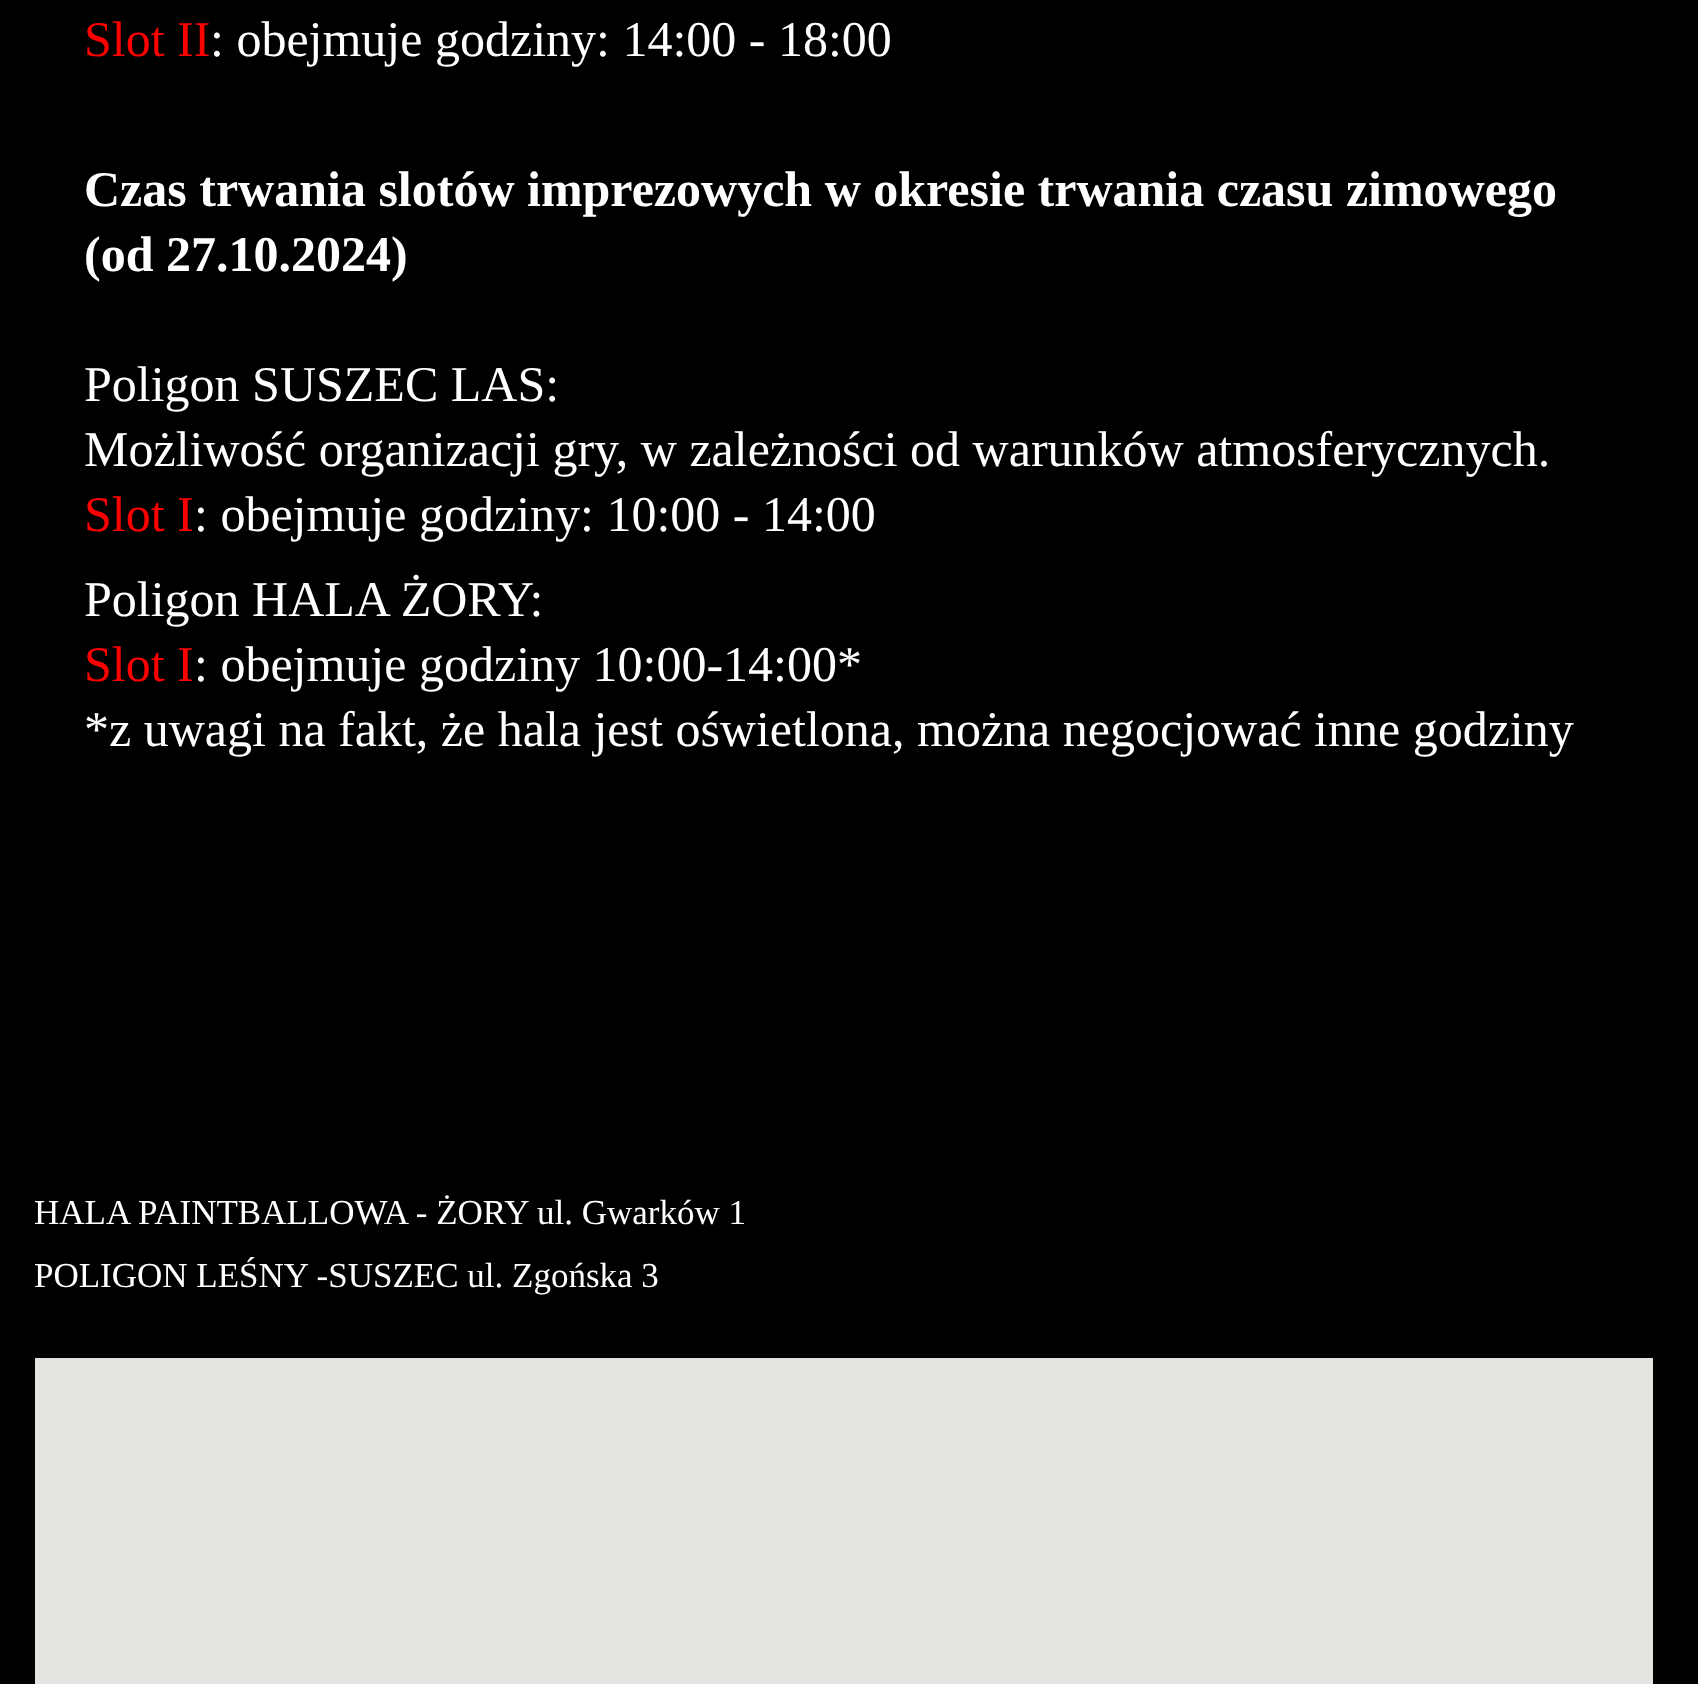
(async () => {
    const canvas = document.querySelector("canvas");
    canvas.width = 1698;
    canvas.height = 1684;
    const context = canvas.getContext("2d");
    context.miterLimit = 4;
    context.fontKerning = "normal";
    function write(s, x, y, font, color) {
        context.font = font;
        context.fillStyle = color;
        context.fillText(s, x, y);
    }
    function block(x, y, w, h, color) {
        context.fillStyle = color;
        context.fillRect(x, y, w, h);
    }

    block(0, 0, 1698, 1684, "rgb(0, 0, 0)");
    write("Slot II", 84, 56, "50px Liberation Serif", "rgb(255, 0, 0)");
    write(": obejmuje godziny: 14:00 - 18:00", 210, 56, "50px Liberation Serif", "rgb(255, 255, 255)");
    write("Czas trwania slotów imprezowych w okresie trwania czasu zimowego", 84, 206, "bold 50px Liberation Serif", "rgb(255, 255, 255)");
    write("(od 27.10.2024)", 84, 271, "bold 50px Liberation Serif", "rgb(255, 255, 255)");
    write("Poligon SUSZEC LAS:", 84, 401, "50px Liberation Serif", "rgb(255, 255, 255)");
    write("Możliwość organizacji gry, w zależności od warunków atmosferycznych.", 84, 466, "50px Liberation Serif", "rgb(255, 255, 255)");
    write("Slot I", 84, 531, "50px Liberation Serif", "rgb(255, 0, 0)");
    write(": obejmuje godziny: 10:00 - 14:00", 194, 531, "50px Liberation Serif", "rgb(255, 255, 255)");
    write("Poligon HALA ŻORY:", 84, 616, "50px Liberation Serif", "rgb(255, 255, 255)");
    write("Slot I", 84, 681, "50px Liberation Serif", "rgb(255, 0, 0)");
    write(": obejmuje godziny 10:00-14:00*", 194, 681, "50px Liberation Serif", "rgb(255, 255, 255)");
    write("*z uwagi na fakt, że hala jest oświetlona, można negocjować inne godziny", 84, 746, "50px Liberation Serif", "rgb(255, 255, 255)");
    write("HALA PAINTBALLOWA - ŻORY ul. Gwarków 1", 34, 1224, "35px Liberation Serif", "rgb(255, 255, 255)");
    write("POLIGON LEŚNY -SUSZEC ul. Zgońska 3", 34, 1287, "35px Liberation Serif", "rgb(255, 255, 255)");
    block(35, 1358, 1618, 326, "rgb(229, 227, 223)");
})();
